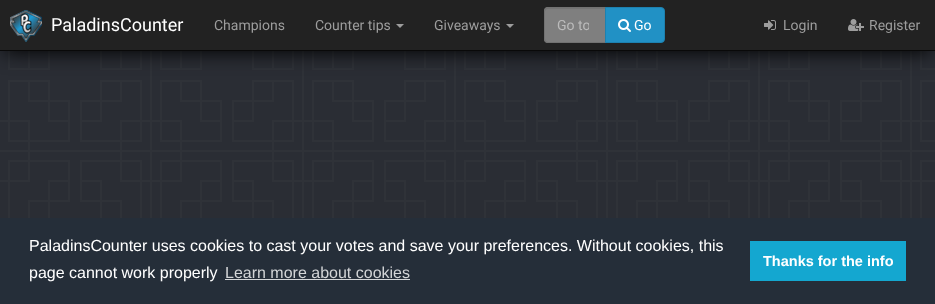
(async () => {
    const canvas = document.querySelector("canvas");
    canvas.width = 935;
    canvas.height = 304;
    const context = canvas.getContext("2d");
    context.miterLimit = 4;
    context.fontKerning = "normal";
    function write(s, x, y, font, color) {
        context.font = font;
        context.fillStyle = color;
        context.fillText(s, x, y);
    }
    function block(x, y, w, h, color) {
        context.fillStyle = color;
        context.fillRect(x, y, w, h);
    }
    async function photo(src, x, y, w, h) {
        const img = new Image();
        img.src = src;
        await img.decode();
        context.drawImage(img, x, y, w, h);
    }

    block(0, 0, 935, 304, "rgb(42, 45, 52)");
    await photo("media/1.png", 0, 51, 935, 167);
    context.fillStyle = "rgb(0, 0, 0)";
    context.filter = "blur(10px)";
    context.beginPath();
    context.rect(4, 9, 927, 43);
    context.fill();
    context.filter = "none";
    block(0, 0, 935, 50, "rgb(34, 34, 34)");
    block(0, 50, 935, 1, "rgb(9, 9, 9)");
    await photo("media/2.png", 10, 10, 32, 32);
    write("PaladinsCounter", 51, 31, "18px Roboto", "rgb(255, 255, 255)");
    write("Champions", 214, 30, "14px Roboto", "rgb(157, 157, 157)");
    write("Counter tips", 315, 30, "14px Roboto", "rgb(157, 157, 157)");
    context.beginPath();
    context.moveTo(396, 24);
    context.lineTo(404, 24);
    context.lineTo(400, 28);
    context.closePath();
    context.fill();
    write("Giveaways", 434, 30, "14px Roboto", "rgb(157, 157, 157)");
    context.beginPath();
    context.moveTo(506, 24);
    context.lineTo(514, 24);
    context.lineTo(510, 28);
    context.closePath();
    context.fill();
    context.fillStyle = "rgb(127, 127, 127)";
    context.beginPath();
    context.roundRect(544, 7, 62, 36, [4, 0, 0, 4]);
    context.fill();
    context.fillStyle = "rgb(117, 117, 117)";
    context.beginPath();
    context.moveTo(548, 9);
    context.lineTo(605, 9);
    context.lineTo(605, 8);
    context.lineTo(548, 8);
    context.bezierCurveTo(546, 8, 545, 9, 545, 11);
    context.lineTo(545, 12);
    context.bezierCurveTo(545, 10, 546, 9, 548, 9);
    context.closePath();
    context.fill();
    context.beginPath();
    context.roundRect(544.5, 7.5, 61, 35, [3.5, 0, 0, 3.5]);
    context.strokeStyle = "rgb(114, 114, 114)";
    context.stroke();
    context.save();
    context.beginPath();
    context.rect(557, 17, 32, 16);
    context.clip();
    write("Go to", 557, 30, "14px Roboto", "rgb(187, 187, 187)");
    context.restore();
    context.fillStyle = "rgb(33, 145, 197)";
    context.beginPath();
    context.roundRect(605.5, 7.5, 59, 35, [0, 3.5, 3.5, 0]);
    context.fill();
    context.strokeStyle = "rgb(29, 129, 175)";
    context.stroke();
    await photo("media/3.png", 618, 19, 13, 13);
    write("Go", 634, 30, "14px Roboto", "rgb(255, 255, 255)");
    await photo("media/4.png", 764, 20, 12, 10);
    write("Login", 783, 30, "14px Roboto", "rgb(157, 157, 157)");
    await photo("media/5.png", 848, 19, 16, 12);
    write("Register", 869, 30, "14px Roboto", "rgb(157, 157, 157)");
    block(0, 218, 935, 86, "rgb(37, 46, 57)");
    write("PaladinsCounter uses cookies to cast your votes and save your preferences. Without cookies, this", 29, 251, "16px Liberation Sans", "rgb(255, 255, 255)");
    write("page cannot work properly", 29, 278, "16px Liberation Sans", "rgb(255, 255, 255)");
    write("Learn more about cookies", 225, 278, "16px Liberation Sans", "rgb(211, 213, 215)");
    block(225, 279, 185, 1, "rgb(211, 213, 215)");
    block(750, 241, 156, 40, "rgb(20, 167, 208)");
    write("Thanks for the info", 763, 266, "bold 14.5px Liberation Sans", "rgb(255, 255, 255)");
})();
